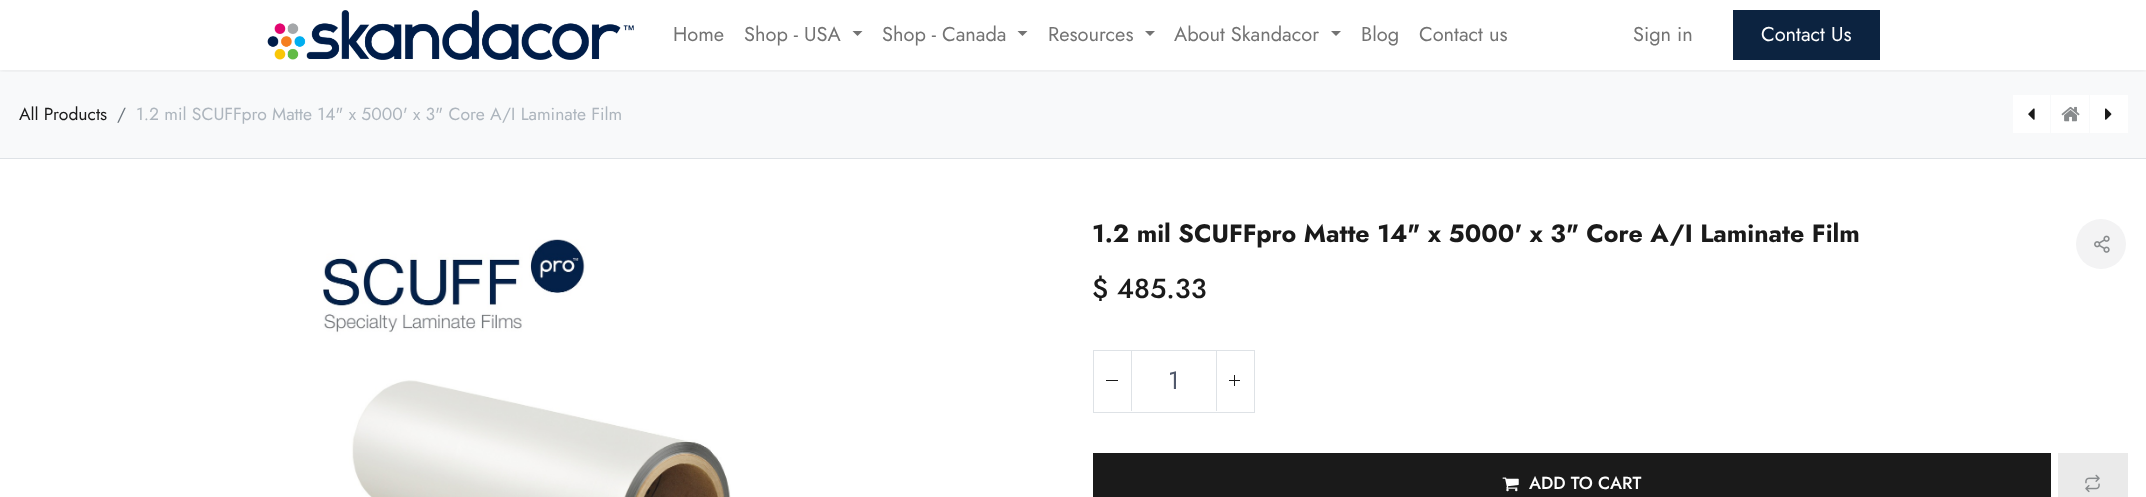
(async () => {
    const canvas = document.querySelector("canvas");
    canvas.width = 2146;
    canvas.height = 497;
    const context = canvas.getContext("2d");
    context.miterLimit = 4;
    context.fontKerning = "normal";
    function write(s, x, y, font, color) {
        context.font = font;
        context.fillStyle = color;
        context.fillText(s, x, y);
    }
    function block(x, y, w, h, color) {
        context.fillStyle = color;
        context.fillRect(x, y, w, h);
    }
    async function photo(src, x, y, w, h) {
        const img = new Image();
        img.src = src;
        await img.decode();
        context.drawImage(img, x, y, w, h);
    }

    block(0, 0, 2146, 497, "rgb(255, 255, 255)");
    block(0, 70, 2146, 88, "rgb(248, 249, 250)");
    context.save();
    context.beginPath();
    context.rect(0, 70, 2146, 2);
    context.clip();
    context.fillStyle = "rgba(0, 0, 0, 0.07)";
    context.filter = "blur(2.5px)";
    context.beginPath();
    context.rect(0, 1, 2146, 70);
    context.fill();
    context.filter = "none";
    context.restore();
    await photo("media/1.png", 267, 10, 367, 50);
    write("Home", 673, 41, "20px Jost", "rgb(115, 115, 115)");
    write("Shop - USA", 744, 41, "20px Jost", "rgb(115, 115, 115)");
    context.beginPath();
    context.moveTo(852.5, 31);
    context.lineTo(862.5, 31);
    context.lineTo(857.5, 36);
    context.closePath();
    context.fill();
    write("Shop - Canada", 882, 41, "20px Jost", "rgb(115, 115, 115)");
    context.beginPath();
    context.moveTo(1017.5, 31);
    context.lineTo(1027.5, 31);
    context.lineTo(1022.5, 36);
    context.closePath();
    context.fill();
    write("Resources", 1048, 41, "20px Jost", "rgb(115, 115, 115)");
    context.beginPath();
    context.moveTo(1145, 31);
    context.lineTo(1155, 31);
    context.lineTo(1150, 36);
    context.closePath();
    context.fill();
    write("About Skandacor", 1174, 41, "20px Jost", "rgb(115, 115, 115)");
    context.beginPath();
    context.moveTo(1331, 31);
    context.lineTo(1341, 31);
    context.lineTo(1336, 36);
    context.closePath();
    context.fill();
    write("Blog", 1361, 41, "20px Jost", "rgb(115, 115, 115)");
    write("Contact us", 1419, 41, "20px Jost", "rgb(115, 115, 115)");
    write("Sign in", 1633, 41, "20px Jost", "rgb(115, 115, 115)");
    block(1733, 10, 147, 50, "rgb(12, 35, 64)");
    write("Contact Us", 1761, 41, "20px Jost", "rgb(255, 255, 255)");
    block(0, 158, 2146, 1, "rgb(222, 226, 230)");
    write("All Products", 19, 120, "17.5px Jost", "rgb(26, 26, 26)");
    write("/", 117, 120, "17.5px Jost", "rgb(108, 117, 125)");
    write("1.2 mil SCUFFpro Matte 14\" x 5000' x 3\" Core A/I Laminate Film", 136, 120, "17.5px Jost", "rgb(173, 181, 189)");
    block(2013, 95, 37, 38, "rgb(255, 255, 255)");
    await photo("media/2.png", 2028, 108, 7, 12);
    block(2051, 95, 38, 38, "rgb(255, 255, 255)");
    await photo("media/3.png", 2061, 106, 19, 16);
    block(2090, 95, 38, 38, "rgb(255, 255, 255)");
    await photo("media/4.png", 2105, 108, 7, 12);
    await photo("media/5.png", 323, 239, 408, 258);
    write("1.2 mil SCUFFpro Matte 14\" x 5000' x 3\" Core A/I Laminate Film", 1092, 242, "bold 25px Jost", "rgb(26, 26, 26)");
    context.fillStyle = "rgb(243, 243, 244)";
    context.beginPath();
    context.arc(2101, 244, 25, 0, Math.PI * 2);
    context.fill();
    await photo("media/6.png", 2094, 235, 16, 18);
    write("$ 485.33", 1092, 298, "500 27.5px Jost", "rgb(26, 26, 26)");
    context.strokeStyle = "rgb(222, 226, 230)";
    context.strokeRect(1093.5, 350.5, 161, 62);
    block(1106, 380, 12, 1, "rgb(26, 26, 26)");
    block(1216, 351, 1, 60, "rgb(222, 226, 230)");
    block(1131, 351, 1, 60, "rgb(222, 226, 230)");
    write("1", 1168, 389, "25px Jost", "rgb(81, 89, 108)");
    block(1229, 380, 11, 1, "rgb(26, 26, 26)");
    block(1234, 375, 1, 11, "rgb(26, 26, 26)");
    block(1093, 453, 958, 44, "rgb(26, 26, 26)");
    await photo("media/7.png", 1502, 477, 17, 15);
    write("ADD TO CART", 1529, 489, "500 17.5px Jost", "rgb(255, 255, 255)");
    block(2058, 453, 70, 44, "rgb(234, 234, 234)");
    await photo("media/8.png", 2085, 474, 15, 19);
})();
